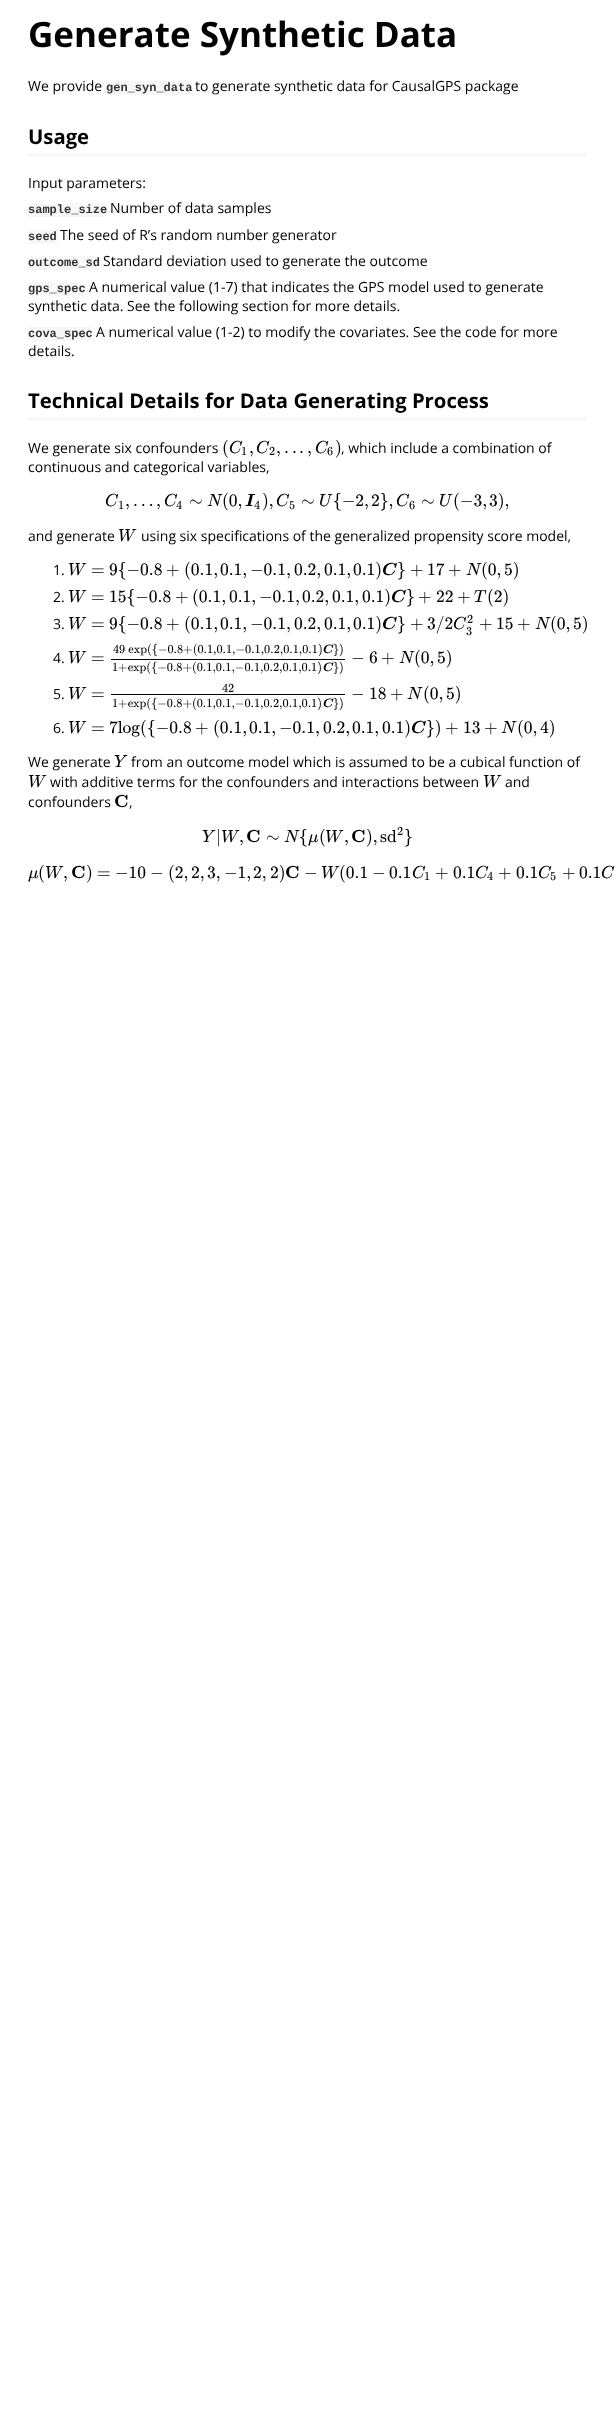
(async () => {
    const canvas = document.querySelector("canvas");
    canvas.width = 615;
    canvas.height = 2424;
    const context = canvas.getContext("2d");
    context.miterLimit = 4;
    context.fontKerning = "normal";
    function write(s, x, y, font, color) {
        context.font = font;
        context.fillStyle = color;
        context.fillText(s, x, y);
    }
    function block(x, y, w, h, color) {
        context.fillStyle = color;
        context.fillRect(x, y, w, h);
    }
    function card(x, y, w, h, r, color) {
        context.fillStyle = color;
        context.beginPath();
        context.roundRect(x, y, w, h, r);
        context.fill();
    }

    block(0, 0, 615, 2424, "rgb(255, 255, 255)");
    write("Generate Synthetic Data", 28, 47, "bold 35px Open Sans", "rgb(0, 0, 0)");
    write("We provide", 28, 91, "14px Open Sans", "rgb(0, 0, 0)");
    card(106, 81, 85, 14, 3, "rgb(247, 247, 247)");
    write("gen_syn_data", 106, 91, "bold 12px Liberation Mono", "rgb(51, 51, 51)");
    write("to generate synthetic data for CausalGPS package", 195, 91, "14px Open Sans", "rgb(0, 0, 0)");
    block(28, 153, 559, 4, "rgb(247, 247, 247)");
    write("Usage", 28, 144, "bold 20.3px Open Sans", "rgb(0, 0, 0)");
    write("Input parameters:", 28, 188, "14px Open Sans", "rgb(0, 0, 0)");
    card(28, 203, 79, 14, 3, "rgb(247, 247, 247)");
    write("sample_size", 28, 213, "bold 12px Liberation Mono", "rgb(51, 51, 51)");
    write("Number of data samples", 110, 213, "14px Open Sans", "rgb(0, 0, 0)");
    card(28, 230, 29, 14, 3, "rgb(247, 247, 247)");
    write("seed", 28, 240, "bold 12px Liberation Mono", "rgb(51, 51, 51)");
    write("The seed of R’s random number generator", 60, 240, "14px Open Sans", "rgb(0, 0, 0)");
    card(28, 256, 71, 14, 3, "rgb(247, 247, 247)");
    write("outcome_sd", 28, 266, "bold 12px Liberation Mono", "rgb(51, 51, 51)");
    write("Standard deviation used to generate the outcome", 103, 266, "14px Open Sans", "rgb(0, 0, 0)");
    card(28, 282, 57, 14, 3, "rgb(247, 247, 247)");
    write("gps_spec", 28, 292, "bold 12px Liberation Mono", "rgb(51, 51, 51)");
    write("A numerical value (1-7) that indicates the GPS model used to generate", 89, 292, "14px Open Sans", "rgb(0, 0, 0)");
    write("synthetic data. See the following section for more details.", 28, 311, "14px Open Sans", "rgb(0, 0, 0)");
    card(28, 327, 64, 14, 3, "rgb(247, 247, 247)");
    write("cova_spec", 28, 337, "bold 12px Liberation Mono", "rgb(51, 51, 51)");
    write("A numerical value (1-2) to modify the covariates. See the code for more", 96, 337, "14px Open Sans", "rgb(0, 0, 0)");
    write("details.", 28, 356, "14px Open Sans", "rgb(0, 0, 0)");
    block(28, 417, 559, 4, "rgb(247, 247, 247)");
    write("Technical Details for Data Generating Process", 28, 408, "bold 20.3px Open Sans", "rgb(0, 0, 0)");
    write("We generate six confounders", 28, 453, "14px Open Sans", "rgb(0, 0, 0)");
    write("(", 222, 453, "17.5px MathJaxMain", "rgb(0, 0, 0)");
    write("C", 229, 453, "italic 17.5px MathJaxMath", "rgb(0, 0, 0)");
    write("1", 241, 455, "12.25px MathJaxMain", "rgb(0, 0, 0)");
    write(",", 249, 453, "17.5px MathJaxMain", "rgb(0, 0, 0)");
    write("C", 256, 453, "italic 17.5px MathJaxMath", "rgb(0, 0, 0)");
    write("2", 269, 455, "12.25px MathJaxMain", "rgb(0, 0, 0)");
    write(",", 276, 453, "17.5px MathJaxMain", "rgb(0, 0, 0)");
    write(".", 284, 453, "17.5px MathJaxMain", "rgb(0, 0, 0)");
    write(".", 292, 453, "17.5px MathJaxMain", "rgb(0, 0, 0)");
    write(".", 299, 453, "17.5px MathJaxMain", "rgb(0, 0, 0)");
    write(",", 307, 453, "17.5px MathJaxMain", "rgb(0, 0, 0)");
    write("C", 315, 453, "italic 17.5px MathJaxMath", "rgb(0, 0, 0)");
    write("6", 327, 455, "12.25px MathJaxMain", "rgb(0, 0, 0)");
    write(")", 335, 453, "17.5px MathJaxMain", "rgb(0, 0, 0)");
    write(", which include a combination of", 341, 453, "14px Open Sans", "rgb(0, 0, 0)");
    write("continuous and categorical variables,", 28, 472, "14px Open Sans", "rgb(0, 0, 0)");
    write("C", 105, 506, "italic 17.5px MathJaxMath", "rgb(0, 0, 0)");
    write("1", 118, 509, "12.25px MathJaxMain", "rgb(0, 0, 0)");
    write("C", 164, 506, "italic 17.5px MathJaxMath", "rgb(0, 0, 0)");
    write("4", 176, 509, "12.25px MathJaxMain", "rgb(0, 0, 0)");
    write("∼", 189, 506, "17.5px MathJaxMain", "rgb(0, 0, 0)");
    write("N", 207, 506, "italic 17.5px MathJaxMath", "rgb(0, 0, 0)");
    write("(0,", 222, 506, "17.5px MathJaxMain", "rgb(0, 0, 0)");
    write("I", 245, 506, "italic bold 17.5px MathJaxMath", "rgb(0, 0, 0)");
    write("4", 254, 509, "12.25px MathJaxMain", "rgb(0, 0, 0)");
    write("),", 262, 506, "17.5px MathJaxMain", "rgb(0, 0, 0)");
    write("C", 276, 506, "italic 17.5px MathJaxMath", "rgb(0, 0, 0)");
    write("5", 289, 509, "12.25px MathJaxMain", "rgb(0, 0, 0)");
    write("∼", 301, 506, "17.5px MathJaxMain", "rgb(0, 0, 0)");
    write("U", 319, 506, "italic 17.5px MathJaxMath", "rgb(0, 0, 0)");
    write("{−2,", 333, 506, "17.5px MathJaxMain", "rgb(0, 0, 0)");
    write("2},", 371, 506, "17.5px MathJaxMain", "rgb(0, 0, 0)");
    write("C", 396, 506, "italic 17.5px MathJaxMath", "rgb(0, 0, 0)");
    write("6", 409, 509, "12.25px MathJaxMain", "rgb(0, 0, 0)");
    write("∼", 421, 506, "17.5px MathJaxMain", "rgb(0, 0, 0)");
    write("U", 439, 506, "italic 17.5px MathJaxMath", "rgb(0, 0, 0)");
    write("(−3,", 453, 506, "17.5px MathJaxMain", "rgb(0, 0, 0)");
    write("3),", 489, 506, "17.5px MathJaxMain", "rgb(0, 0, 0)");
    write(",", 125, 506, "17.5px MathJaxMain", "rgb(0, 0, 0)");
    write("…", 133, 506, "17.5px MathJaxMain", "rgb(0, 0, 0)");
    write(",", 156, 506, "17.5px MathJaxMain", "rgb(0, 0, 0)");
    write("and generate", 28, 541, "14px Open Sans", "rgb(0, 0, 0)");
    write("W", 118, 541, "italic 17.5px MathJaxMath", "rgb(0, 0, 0)");
    write("using six specifications of the generalized propensity score model,", 141, 541, "14px Open Sans", "rgb(0, 0, 0)");
    write("1.", 53, 575, "14px Open Sans", "rgb(0, 0, 0)");
    write("W", 68, 575, "italic 17.5px MathJaxMath", "rgb(0, 0, 0)");
    write("=", 91, 575, "17.5px MathJaxMain", "rgb(0, 0, 0)");
    write("9{−0.8", 109, 575, "17.5px MathJaxMain", "rgb(0, 0, 0)");
    write("+", 166, 575, "17.5px MathJaxMain", "rgb(0, 0, 0)");
    write("(0.1,", 184, 575, "17.5px MathJaxMain", "rgb(0, 0, 0)");
    write("0.1,", 220, 575, "17.5px MathJaxMain", "rgb(0, 0, 0)");
    write("−0.1,", 250, 575, "17.5px MathJaxMain", "rgb(0, 0, 0)");
    write("0.2,", 294, 575, "17.5px MathJaxMain", "rgb(0, 0, 0)");
    write("0.1,", 324, 575, "17.5px MathJaxMain", "rgb(0, 0, 0)");
    write("0.1)", 353, 575, "17.5px MathJaxMain", "rgb(0, 0, 0)");
    write("C", 382, 575, "italic bold 17.5px MathJaxMath", "rgb(0, 0, 0)");
    write("}", 397, 575, "17.5px MathJaxMain", "rgb(0, 0, 0)");
    write("+", 410, 575, "17.5px MathJaxMain", "rgb(0, 0, 0)");
    write("17", 427, 575, "17.5px MathJaxMain", "rgb(0, 0, 0)");
    write("+", 448, 575, "17.5px MathJaxMain", "rgb(0, 0, 0)");
    write("N", 466, 575, "italic 17.5px MathJaxMath", "rgb(0, 0, 0)");
    write("(0,", 481, 575, "17.5px MathJaxMain", "rgb(0, 0, 0)");
    write("5)", 504, 575, "17.5px MathJaxMain", "rgb(0, 0, 0)");
    write("2.", 53, 602, "14px Open Sans", "rgb(0, 0, 0)");
    write("W", 68, 602, "italic 17.5px MathJaxMath", "rgb(0, 0, 0)");
    write("=", 91, 602, "17.5px MathJaxMain", "rgb(0, 0, 0)");
    write("15{−0.8", 109, 602, "17.5px MathJaxMain", "rgb(0, 0, 0)");
    write("+", 175, 602, "17.5px MathJaxMain", "rgb(0, 0, 0)");
    write("(0.1,", 192, 602, "17.5px MathJaxMain", "rgb(0, 0, 0)");
    write("0.1,", 229, 602, "17.5px MathJaxMain", "rgb(0, 0, 0)");
    write("−0.1,", 259, 602, "17.5px MathJaxMain", "rgb(0, 0, 0)");
    write("0.2,", 302, 602, "17.5px MathJaxMain", "rgb(0, 0, 0)");
    write("0.1,", 332, 602, "17.5px MathJaxMain", "rgb(0, 0, 0)");
    write("0.1)", 362, 602, "17.5px MathJaxMain", "rgb(0, 0, 0)");
    write("C", 391, 602, "italic bold 17.5px MathJaxMath", "rgb(0, 0, 0)");
    write("}", 406, 602, "17.5px MathJaxMain", "rgb(0, 0, 0)");
    write("+", 418, 602, "17.5px MathJaxMain", "rgb(0, 0, 0)");
    write("22", 436, 602, "17.5px MathJaxMain", "rgb(0, 0, 0)");
    write("+", 457, 602, "17.5px MathJaxMain", "rgb(0, 0, 0)");
    write("T", 474, 602, "italic 17.5px MathJaxMath", "rgb(0, 0, 0)");
    write("(2)", 487, 602, "17.5px MathJaxMain", "rgb(0, 0, 0)");
    write("3.", 53, 629, "14px Open Sans", "rgb(0, 0, 0)");
    write("W", 68, 629, "italic 17.5px MathJaxMath", "rgb(0, 0, 0)");
    write("=", 91, 629, "17.5px MathJaxMain", "rgb(0, 0, 0)");
    write("9{−0.8", 109, 629, "17.5px MathJaxMain", "rgb(0, 0, 0)");
    write("+", 166, 629, "17.5px MathJaxMain", "rgb(0, 0, 0)");
    write("(0.1,", 184, 629, "17.5px MathJaxMain", "rgb(0, 0, 0)");
    write("0.1,", 220, 629, "17.5px MathJaxMain", "rgb(0, 0, 0)");
    write("−0.1,", 250, 629, "17.5px MathJaxMain", "rgb(0, 0, 0)");
    write("0.2,", 294, 629, "17.5px MathJaxMain", "rgb(0, 0, 0)");
    write("0.1,", 324, 629, "17.5px MathJaxMain", "rgb(0, 0, 0)");
    write("0.1)", 353, 629, "17.5px MathJaxMain", "rgb(0, 0, 0)");
    write("C", 382, 629, "italic bold 17.5px MathJaxMath", "rgb(0, 0, 0)");
    write("}", 397, 629, "17.5px MathJaxMain", "rgb(0, 0, 0)");
    write("+", 410, 629, "17.5px MathJaxMain", "rgb(0, 0, 0)");
    write("3/2", 427, 629, "17.5px MathJaxMain", "rgb(0, 0, 0)");
    write("C", 453, 629, "italic 17.5px MathJaxMath", "rgb(0, 0, 0)");
    write("2", 467, 623, "12.25px MathJaxMain", "rgb(0, 0, 0)");
    write("3", 466, 635, "12.25px MathJaxMain", "rgb(0, 0, 0)");
    write("+", 479, 629, "17.5px MathJaxMain", "rgb(0, 0, 0)");
    write("15", 496, 629, "17.5px MathJaxMain", "rgb(0, 0, 0)");
    write("+", 517, 629, "17.5px MathJaxMain", "rgb(0, 0, 0)");
    write("N", 535, 629, "italic 17.5px MathJaxMath", "rgb(0, 0, 0)");
    write("(0,", 550, 629, "17.5px MathJaxMain", "rgb(0, 0, 0)");
    write("5)", 573, 629, "17.5px MathJaxMain", "rgb(0, 0, 0)");
    write("4.", 53, 663, "14px Open Sans", "rgb(0, 0, 0)");
    write("W", 68, 663, "italic 17.5px MathJaxMath", "rgb(0, 0, 0)");
    write("=", 91, 663, "17.5px MathJaxMain", "rgb(0, 0, 0)");
    write("49 exp({−0.8+(0.1,0.1,−0.1,0.2,0.1,0.1)", 113, 653, "12.25px MathJaxMain", "rgb(0, 0, 0)");
    write("C", 323, 653, "italic bold 12.25px MathJaxMath", "rgb(0, 0, 0)");
    write("})", 333, 653, "12.25px MathJaxMain", "rgb(0, 0, 0)");
    block(111, 659, 234, 1, "rgb(0, 0, 0)");
    write("1+exp({−0.8+(0.1,0.1,−0.1,0.2,0.1,0.1)", 112, 671, "12.25px MathJaxMain", "rgb(0, 0, 0)");
    write("C", 323, 671, "italic bold 12.25px MathJaxMath", "rgb(0, 0, 0)");
    write("})", 333, 671, "12.25px MathJaxMain", "rgb(0, 0, 0)");
    write("−", 351, 663, "17.5px MathJaxMain", "rgb(0, 0, 0)");
    write("6", 369, 663, "17.5px MathJaxMain", "rgb(0, 0, 0)");
    write("+", 381, 663, "17.5px MathJaxMain", "rgb(0, 0, 0)");
    write("N", 399, 663, "italic 17.5px MathJaxMath", "rgb(0, 0, 0)");
    write("(0,", 414, 663, "17.5px MathJaxMain", "rgb(0, 0, 0)");
    write("5)", 437, 663, "17.5px MathJaxMain", "rgb(0, 0, 0)");
    write("5.", 53, 699, "14px Open Sans", "rgb(0, 0, 0)");
    write("W", 68, 699, "italic 17.5px MathJaxMath", "rgb(0, 0, 0)");
    write("=", 91, 699, "17.5px MathJaxMain", "rgb(0, 0, 0)");
    write("42", 222, 692, "12.25px MathJaxMain", "rgb(0, 0, 0)");
    block(111, 694, 234, 1, "rgb(0, 0, 0)");
    write("1+exp({−0.8+(0.1,0.1,−0.1,0.2,0.1,0.1)", 112, 707, "12.25px MathJaxMain", "rgb(0, 0, 0)");
    write("C", 323, 707, "italic bold 12.25px MathJaxMath", "rgb(0, 0, 0)");
    write("})", 333, 707, "12.25px MathJaxMain", "rgb(0, 0, 0)");
    write("−", 351, 699, "17.5px MathJaxMain", "rgb(0, 0, 0)");
    write("18", 369, 699, "17.5px MathJaxMain", "rgb(0, 0, 0)");
    write("+", 390, 699, "17.5px MathJaxMain", "rgb(0, 0, 0)");
    write("N", 407, 699, "italic 17.5px MathJaxMath", "rgb(0, 0, 0)");
    write("(0,", 423, 699, "17.5px MathJaxMain", "rgb(0, 0, 0)");
    write("5)", 446, 699, "17.5px MathJaxMain", "rgb(0, 0, 0)");
    write("6.", 53, 733, "14px Open Sans", "rgb(0, 0, 0)");
    write("W", 68, 733, "italic 17.5px MathJaxMath", "rgb(0, 0, 0)");
    write("=", 91, 733, "17.5px MathJaxMain", "rgb(0, 0, 0)");
    write("7log({−0.8", 109, 733, "17.5px MathJaxMain", "rgb(0, 0, 0)");
    write("+", 195, 733, "17.5px MathJaxMain", "rgb(0, 0, 0)");
    write("(0.1,", 213, 733, "17.5px MathJaxMain", "rgb(0, 0, 0)");
    write("0.1,", 249, 733, "17.5px MathJaxMain", "rgb(0, 0, 0)");
    write("−0.1,", 279, 733, "17.5px MathJaxMain", "rgb(0, 0, 0)");
    write("0.2,", 323, 733, "17.5px MathJaxMain", "rgb(0, 0, 0)");
    write("0.1,", 352, 733, "17.5px MathJaxMain", "rgb(0, 0, 0)");
    write("0.1)", 382, 733, "17.5px MathJaxMain", "rgb(0, 0, 0)");
    write("C", 411, 733, "italic bold 17.5px MathJaxMath", "rgb(0, 0, 0)");
    write("})", 426, 733, "17.5px MathJaxMain", "rgb(0, 0, 0)");
    write("+", 445, 733, "17.5px MathJaxMain", "rgb(0, 0, 0)");
    write("13", 463, 733, "17.5px MathJaxMain", "rgb(0, 0, 0)");
    write("+", 484, 733, "17.5px MathJaxMain", "rgb(0, 0, 0)");
    write("N", 501, 733, "italic 17.5px MathJaxMath", "rgb(0, 0, 0)");
    write("(0,", 517, 733, "17.5px MathJaxMain", "rgb(0, 0, 0)");
    write("4)", 540, 733, "17.5px MathJaxMain", "rgb(0, 0, 0)");
    write("We generate", 28, 767, "14px Open Sans", "rgb(0, 0, 0)");
    write("Y", 114, 767, "italic 17.5px MathJaxMath", "rgb(0, 0, 0)");
    write("from an outcome model which is assumed to be a cubical function of", 131, 767, "14px Open Sans", "rgb(0, 0, 0)");
    write("W", 28, 787, "italic 17.5px MathJaxMath", "rgb(0, 0, 0)");
    write("with additive terms for the confounders and interactions between", 50, 787, "14px Open Sans", "rgb(0, 0, 0)");
    write("W", 483, 787, "italic 17.5px MathJaxMath", "rgb(0, 0, 0)");
    write("and", 505, 787, "14px Open Sans", "rgb(0, 0, 0)");
    write("confounders", 28, 807, "14px Open Sans", "rgb(0, 0, 0)");
    write("C", 114, 807, "bold 17.5px MathJaxMain", "rgb(0, 0, 0)");
    write(",", 129, 807, "14px Open Sans", "rgb(0, 0, 0)");
    write("Y", 202, 842, "italic 17.5px MathJaxMath", "rgb(0, 0, 0)");
    write("|", 216, 842, "17.5px MathJaxMain", "rgb(0, 0, 0)");
    write("W", 221, 842, "italic 17.5px MathJaxMath", "rgb(0, 0, 0)");
    write("C", 246, 842, "bold 17.5px MathJaxMain", "rgb(0, 0, 0)");
    write("∼", 266, 842, "17.5px MathJaxMain", "rgb(0, 0, 0)");
    write("N", 284, 842, "italic 17.5px MathJaxMath", "rgb(0, 0, 0)");
    write("{", 299, 842, "17.5px MathJaxMain", "rgb(0, 0, 0)");
    write("μ", 308, 842, "italic 17.5px MathJaxMath", "rgb(0, 0, 0)");
    write("(", 319, 842, "17.5px MathJaxMain", "rgb(0, 0, 0)");
    write("W", 325, 842, "italic 17.5px MathJaxMath", "rgb(0, 0, 0)");
    write("C", 351, 842, "bold 17.5px MathJaxMain", "rgb(0, 0, 0)");
    write("),", 366, 842, "17.5px MathJaxMain", "rgb(0, 0, 0)");
    write("sd", 380, 842, "17.5px MathJaxMain", "rgb(0, 0, 0)");
    write("2", 397, 835, "12.25px MathJaxMain", "rgb(0, 0, 0)");
    write("}", 404, 842, "17.5px MathJaxMain", "rgb(0, 0, 0)");
    write(",", 239, 842, "17.5px MathJaxMain", "rgb(0, 0, 0)");
    write(",", 344, 842, "17.5px MathJaxMain", "rgb(0, 0, 0)");
    write("μ", 28, 878, "italic 17.5px MathJaxMath", "rgb(0, 0, 0)");
    write("(", 38, 878, "17.5px MathJaxMain", "rgb(0, 0, 0)");
    write("W", 45, 878, "italic 17.5px MathJaxMath", "rgb(0, 0, 0)");
    write("C", 71, 878, "bold 17.5px MathJaxMain", "rgb(0, 0, 0)");
    write(")", 86, 878, "17.5px MathJaxMain", "rgb(0, 0, 0)");
    write("=", 97, 878, "17.5px MathJaxMain", "rgb(0, 0, 0)");
    write("−10", 115, 878, "17.5px MathJaxMain", "rgb(0, 0, 0)");
    write("−", 150, 878, "17.5px MathJaxMain", "rgb(0, 0, 0)");
    write("(2,", 168, 878, "17.5px MathJaxMain", "rgb(0, 0, 0)");
    write("2,", 191, 878, "17.5px MathJaxMain", "rgb(0, 0, 0)");
    write("3,", 207, 878, "17.5px MathJaxMain", "rgb(0, 0, 0)");
    write("−1,", 224, 878, "17.5px MathJaxMain", "rgb(0, 0, 0)");
    write("2,", 253, 878, "17.5px MathJaxMain", "rgb(0, 0, 0)");
    write("2)", 270, 878, "17.5px MathJaxMain", "rgb(0, 0, 0)");
    write("C", 285, 878, "bold 17.5px MathJaxMain", "rgb(0, 0, 0)");
    write("−", 304, 878, "17.5px MathJaxMain", "rgb(0, 0, 0)");
    write("W", 321, 878, "italic 17.5px MathJaxMath", "rgb(0, 0, 0)");
    write("(0.1", 339, 878, "17.5px MathJaxMain", "rgb(0, 0, 0)");
    write("−", 372, 878, "17.5px MathJaxMain", "rgb(0, 0, 0)");
    write("0.1", 389, 878, "17.5px MathJaxMain", "rgb(0, 0, 0)");
    write("C", 412, 878, "italic 17.5px MathJaxMath", "rgb(0, 0, 0)");
    write("1", 424, 880, "12.25px MathJaxMain", "rgb(0, 0, 0)");
    write("+", 435, 878, "17.5px MathJaxMain", "rgb(0, 0, 0)");
    write("0.1", 453, 878, "17.5px MathJaxMain", "rgb(0, 0, 0)");
    write("C", 475, 878, "italic 17.5px MathJaxMath", "rgb(0, 0, 0)");
    write("4", 487, 880, "12.25px MathJaxMain", "rgb(0, 0, 0)");
    write("+", 498, 878, "17.5px MathJaxMain", "rgb(0, 0, 0)");
    write("0.1", 516, 878, "17.5px MathJaxMain", "rgb(0, 0, 0)");
    write("C", 538, 878, "italic 17.5px MathJaxMath", "rgb(0, 0, 0)");
    write("5", 550, 880, "12.25px MathJaxMain", "rgb(0, 0, 0)");
    write("+", 562, 878, "17.5px MathJaxMain", "rgb(0, 0, 0)");
    write("0.1", 579, 878, "17.5px MathJaxMain", "rgb(0, 0, 0)");
    write("C", 601, 878, "italic 17.5px MathJaxMath", "rgb(0, 0, 0)");
    write(",", 63, 878, "17.5px MathJaxMain", "rgb(0, 0, 0)");
})();
